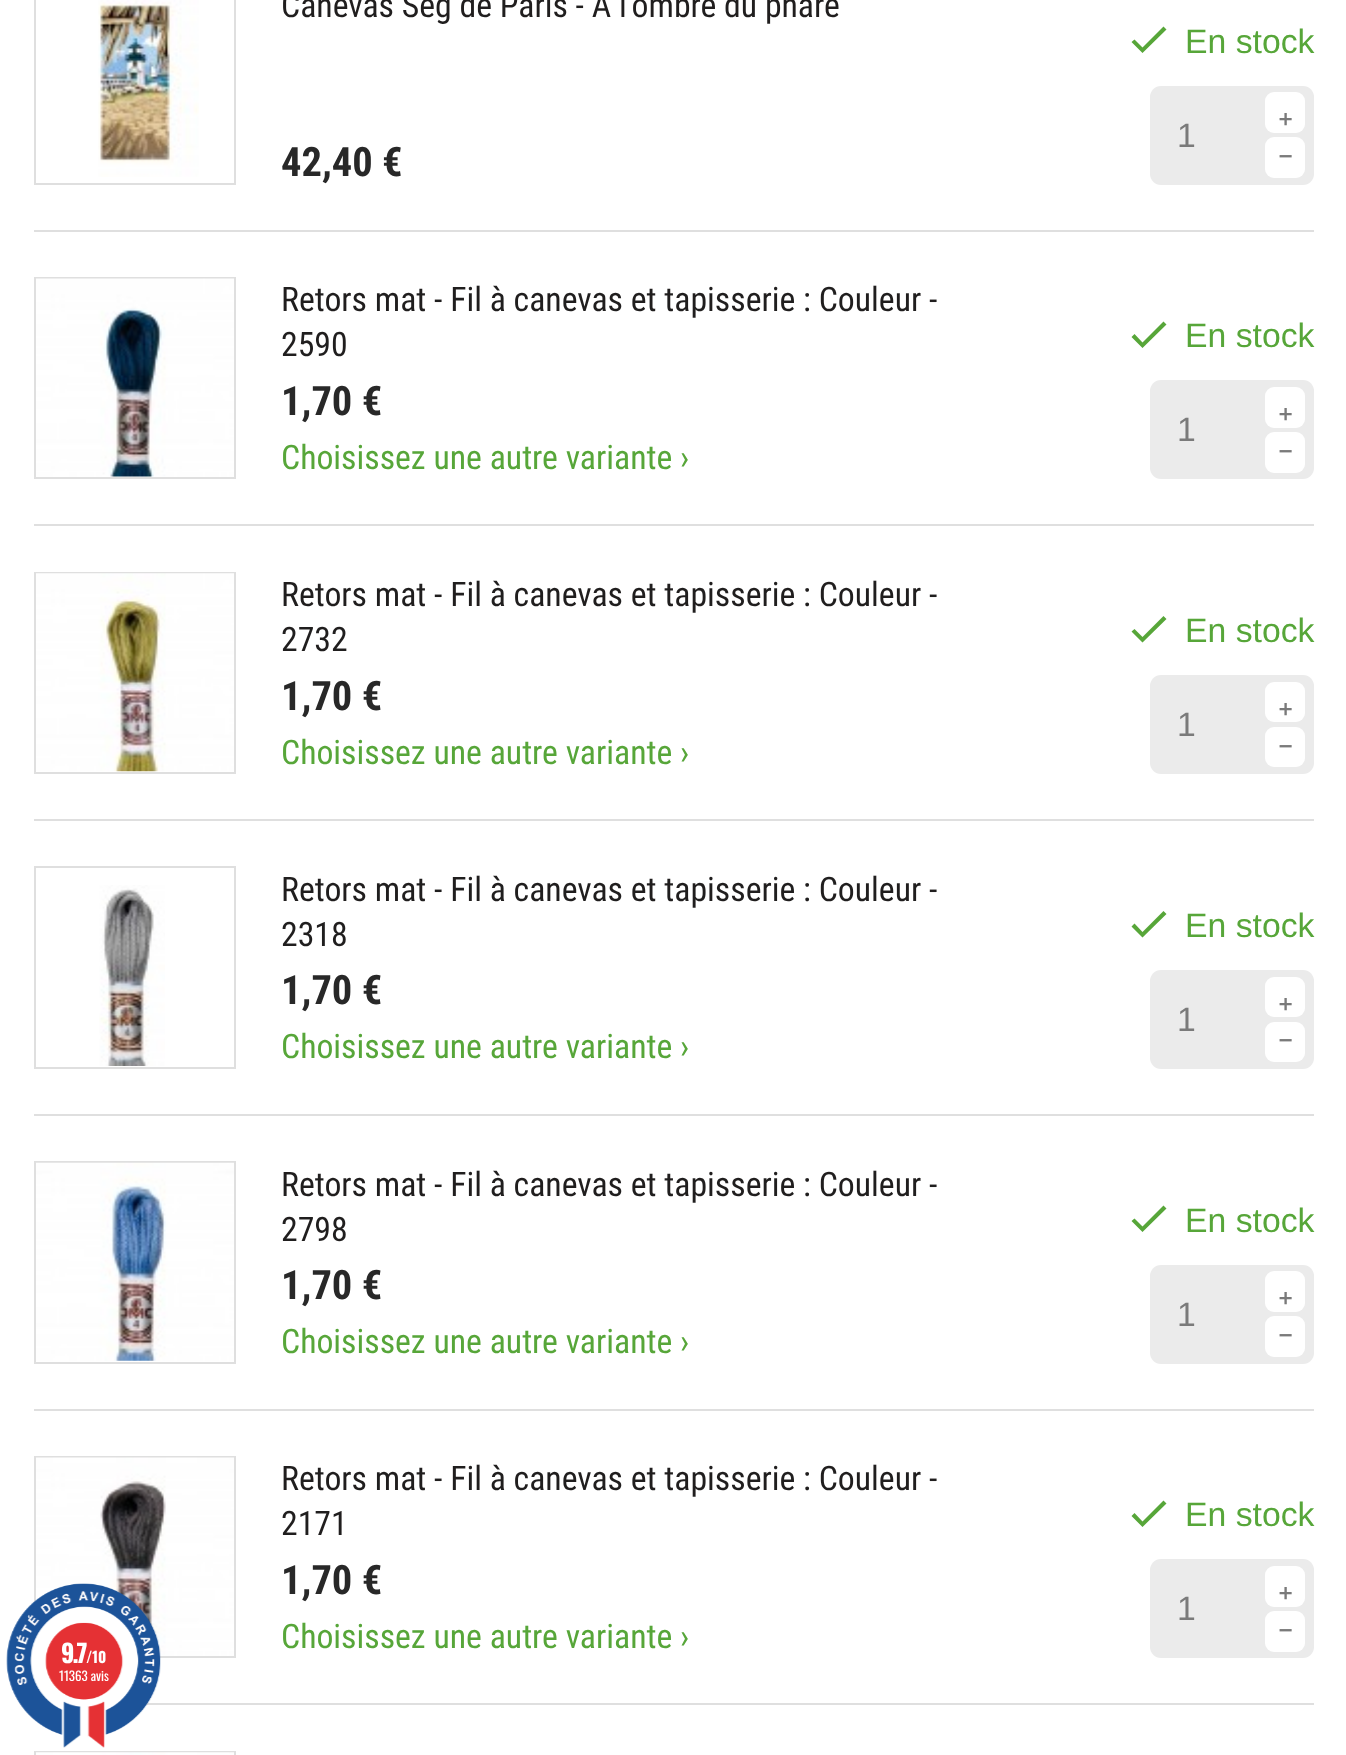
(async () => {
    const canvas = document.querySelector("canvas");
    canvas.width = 1346;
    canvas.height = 1755;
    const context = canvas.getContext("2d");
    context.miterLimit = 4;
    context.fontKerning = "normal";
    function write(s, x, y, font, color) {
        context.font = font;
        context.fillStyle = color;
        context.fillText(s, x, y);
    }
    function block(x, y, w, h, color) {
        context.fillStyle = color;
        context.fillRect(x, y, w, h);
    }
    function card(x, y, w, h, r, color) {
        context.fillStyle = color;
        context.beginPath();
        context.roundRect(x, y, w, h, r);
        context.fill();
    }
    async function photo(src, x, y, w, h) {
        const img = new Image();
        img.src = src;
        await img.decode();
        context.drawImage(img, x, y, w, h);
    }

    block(0, 0, 1346, 1755, "rgb(255, 255, 255)");
    block(34, 230, 1280, 2, "rgb(223, 223, 223)");
    context.strokeStyle = "rgb(223, 223, 223)";
    context.lineWidth = 2;
    context.strokeRect(35, -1, 200, 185);
    await photo("media/1.png", 98, 0, 101, 177);
    write("Canevas Seg de Paris - À l'ombre du phare", 281, 17, "33.75px Roboto Condensed", "rgb(32, 30, 30)");
    write("42,40 €", 281, 176, "bold 40.5px Roboto Condensed", "rgb(40, 40, 40)");
    context.fillStyle = "rgb(87, 166, 57)";
    context.beginPath();
    context.moveTo(1142.5, 47.5);
    context.lineTo(1163.5, 26.5);
    context.lineTo(1166.5, 29.5);
    context.lineTo(1142.5, 53);
    context.lineTo(1131.5, 42);
    context.lineTo(1134.5, 39.5);
    context.closePath();
    context.fill();
    write("En stock", 1185, 53, "33.75px Liberation Sans", "rgb(87, 166, 57)");
    card(1150, 86, 164, 99, 11, "rgb(235, 235, 235)");
    write("1", 1177, 147, "33.75px Liberation Sans", "rgb(122, 122, 122)");
    card(1265, 92, 40, 41, 9, "rgb(255, 255, 255)");
    write("₊", 1278, 122, "45px Noto Sans", "rgb(122, 122, 122)");
    card(1265, 137, 40, 41, 9, "rgb(255, 255, 255)");
    write("⁻", 1278, 183, "45px Noto Sans", "rgb(122, 122, 122)");
    block(34, 524, 1280, 2, "rgb(223, 223, 223)");
    context.strokeRect(35, 278, 200, 200);
    await photo("media/2.png", 36, 278, 198, 199);
    write("Retors mat - Fil à canevas et tapisserie : Couleur -", 281, 311, "33.75px Roboto Condensed", "rgb(32, 30, 30)");
    write("2590", 281, 356, "33.75px Roboto Condensed", "rgb(32, 30, 30)");
    write("1,70 €", 281, 415, "bold 40.5px Roboto Condensed", "rgb(40, 40, 40)");
    write("Choisissez une autre variante ›", 281, 469, "33.75px Roboto Condensed", "rgb(87, 166, 57)");
    context.beginPath();
    context.moveTo(1142.5, 342.5);
    context.lineTo(1163.5, 321.5);
    context.lineTo(1166.5, 324.5);
    context.lineTo(1142.5, 348);
    context.lineTo(1131.5, 337);
    context.lineTo(1134.5, 334);
    context.closePath();
    context.fill();
    write("En stock", 1185, 347, "33.75px Liberation Sans", "rgb(87, 166, 57)");
    card(1150, 380, 164, 99, 11, "rgb(235, 235, 235)");
    write("1", 1177, 441, "33.75px Liberation Sans", "rgb(122, 122, 122)");
    card(1265, 387, 40, 41, 9, "rgb(255, 255, 255)");
    write("₊", 1278, 417, "45px Noto Sans", "rgb(122, 122, 122)");
    card(1265, 432, 40, 41, 9, "rgb(255, 255, 255)");
    write("⁻", 1278, 478, "45px Noto Sans", "rgb(122, 122, 122)");
    block(34, 819, 1280, 2, "rgb(223, 223, 223)");
    context.strokeRect(35, 573, 200, 200);
    await photo("media/3.png", 36, 573, 198, 199);
    write("Retors mat - Fil à canevas et tapisserie : Couleur -", 281, 606, "33.75px Roboto Condensed", "rgb(32, 30, 30)");
    write("2732", 281, 651, "33.75px Roboto Condensed", "rgb(32, 30, 30)");
    write("1,70 €", 281, 710, "bold 40.5px Roboto Condensed", "rgb(40, 40, 40)");
    write("Choisissez une autre variante ›", 281, 764, "33.75px Roboto Condensed", "rgb(87, 166, 57)");
    context.beginPath();
    context.moveTo(1142.5, 637);
    context.lineTo(1163.5, 616);
    context.lineTo(1166.5, 619);
    context.lineTo(1142.5, 642.5);
    context.lineTo(1131.5, 631.5);
    context.lineTo(1134.5, 629);
    context.closePath();
    context.fill();
    write("En stock", 1185, 642, "33.75px Liberation Sans", "rgb(87, 166, 57)");
    card(1150, 675, 164, 99, 11, "rgb(235, 235, 235)");
    write("1", 1177, 736, "33.75px Liberation Sans", "rgb(122, 122, 122)");
    card(1265, 682, 40, 40, 9, "rgb(255, 255, 255)");
    write("₊", 1278, 712, "45px Noto Sans", "rgb(122, 122, 122)");
    card(1265, 727, 40, 40, 9, "rgb(255, 255, 255)");
    write("⁻", 1278, 773, "45px Noto Sans", "rgb(122, 122, 122)");
    block(34, 1114, 1280, 2, "rgb(223, 223, 223)");
    context.strokeRect(35, 867, 200, 201);
    await photo("media/4.png", 99, 885, 66, 181);
    write("Retors mat - Fil à canevas et tapisserie : Couleur -", 281, 901, "33.75px Roboto Condensed", "rgb(32, 30, 30)");
    write("2318", 281, 946, "33.75px Roboto Condensed", "rgb(32, 30, 30)");
    write("1,70 €", 281, 1004, "bold 40.5px Roboto Condensed", "rgb(40, 40, 40)");
    write("Choisissez une autre variante ›", 281, 1058, "33.75px Roboto Condensed", "rgb(87, 166, 57)");
    context.beginPath();
    context.moveTo(1142.5, 932);
    context.lineTo(1163.5, 911);
    context.lineTo(1166.5, 914);
    context.lineTo(1142.5, 937.5);
    context.lineTo(1131.5, 926.5);
    context.lineTo(1134.5, 923.5);
    context.closePath();
    context.fill();
    write("En stock", 1185, 937, "33.75px Liberation Sans", "rgb(87, 166, 57)");
    card(1150, 970, 164, 99, 11, "rgb(235, 235, 235)");
    write("1", 1177, 1031, "33.75px Liberation Sans", "rgb(122, 122, 122)");
    card(1265, 977, 40, 40, 9, "rgb(255, 255, 255)");
    write("₊", 1278, 1007, "45px Noto Sans", "rgb(122, 122, 122)");
    card(1265, 1022, 40, 40, 9, "rgb(255, 255, 255)");
    write("⁻", 1278, 1067, "45px Noto Sans", "rgb(122, 122, 122)");
    block(34, 1409, 1280, 2, "rgb(223, 223, 223)");
    context.strokeRect(35, 1162, 200, 201);
    await photo("media/5.png", 36, 1162, 198, 199);
    write("Retors mat - Fil à canevas et tapisserie : Couleur -", 281, 1196, "33.75px Roboto Condensed", "rgb(32, 30, 30)");
    write("2798", 281, 1241, "33.75px Roboto Condensed", "rgb(32, 30, 30)");
    write("1,70 €", 281, 1299, "bold 40.5px Roboto Condensed", "rgb(40, 40, 40)");
    write("Choisissez une autre variante ›", 281, 1353, "33.75px Roboto Condensed", "rgb(87, 166, 57)");
    context.beginPath();
    context.moveTo(1142.5, 1226.5);
    context.lineTo(1163.5, 1205.5);
    context.lineTo(1166.5, 1208.5);
    context.lineTo(1142.5, 1232);
    context.lineTo(1131.5, 1221);
    context.lineTo(1134.5, 1218.5);
    context.closePath();
    context.fill();
    write("En stock", 1185, 1232, "33.75px Liberation Sans", "rgb(87, 166, 57)");
    card(1150, 1265, 164, 99, 11, "rgb(235, 235, 235)");
    write("1", 1177, 1326, "33.75px Liberation Sans", "rgb(122, 122, 122)");
    card(1265, 1271, 40, 41, 9, "rgb(255, 255, 255)");
    write("₊", 1278, 1301, "45px Noto Sans", "rgb(122, 122, 122)");
    card(1265, 1316, 40, 41, 9, "rgb(255, 255, 255)");
    write("⁻", 1278, 1362, "45px Noto Sans", "rgb(122, 122, 122)");
    block(146, 1703, 1168, 2, "rgb(223, 223, 223)");
    context.strokeRect(35, 1457, 200, 200);
    await photo("media/6.png", 36, 1457, 198, 199);
    write("Retors mat - Fil à canevas et tapisserie : Couleur -", 281, 1490, "33.75px Roboto Condensed", "rgb(32, 30, 30)");
    write("2171", 281, 1535, "33.75px Roboto Condensed", "rgb(32, 30, 30)");
    write("1,70 €", 281, 1594, "bold 40.5px Roboto Condensed", "rgb(40, 40, 40)");
    write("Choisissez une autre variante ›", 281, 1648, "33.75px Roboto Condensed", "rgb(87, 166, 57)");
    context.beginPath();
    context.moveTo(1142.5, 1521.5);
    context.lineTo(1163.5, 1500.5);
    context.lineTo(1166.5, 1503.5);
    context.lineTo(1142.5, 1527);
    context.lineTo(1131.5, 1516);
    context.lineTo(1134.5, 1513);
    context.closePath();
    context.fill();
    write("En stock", 1185, 1526, "33.75px Liberation Sans", "rgb(87, 166, 57)");
    card(1150, 1559, 164, 99, 11, "rgb(235, 235, 235)");
    write("1", 1177, 1620, "33.75px Liberation Sans", "rgb(122, 122, 122)");
    card(1265, 1566, 40, 41, 9, "rgb(255, 255, 255)");
    write("₊", 1278, 1596, "45px Noto Sans", "rgb(122, 122, 122)");
    card(1265, 1611, 40, 41, 9, "rgb(255, 255, 255)");
    write("⁻", 1278, 1657, "45px Noto Sans", "rgb(122, 122, 122)");
    context.strokeRect(35, 1752, 200, 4);
    await photo("media/7.png", 36, 1752, 198, 3);
    await photo("media/8.png", 6, 1583, 155, 165);
    context.letterSpacing = "-2px";
    write("9.7", 61, 1663, "bold 25px Oswald", "rgb(255, 255, 255)");
    context.letterSpacing = "0px";
    write("/10", 86, 1663, "bold 15px Oswald", "rgb(255, 255, 255)");
    write("11363 avis", 59, 1681, "13px Oswald", "rgb(255, 255, 255)");
})();
